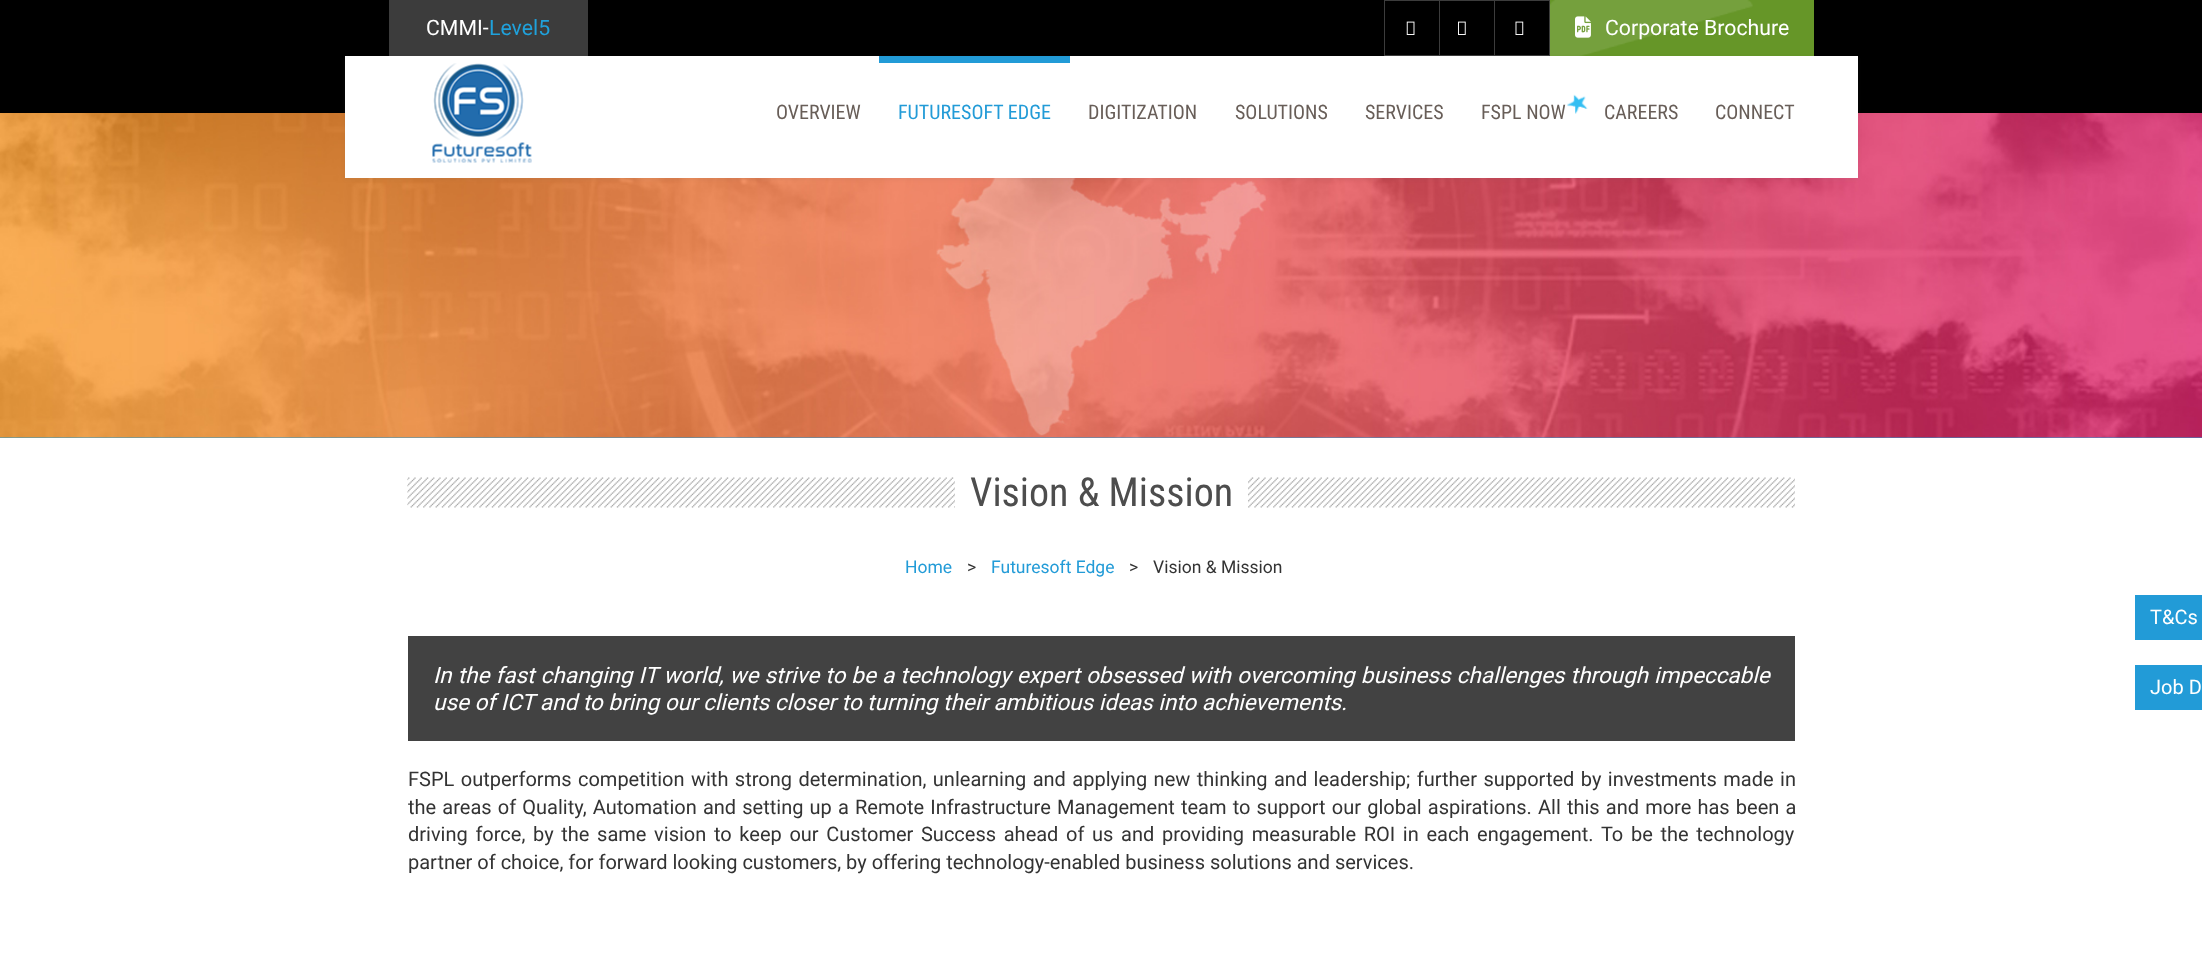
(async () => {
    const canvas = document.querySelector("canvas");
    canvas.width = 2202;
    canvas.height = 971;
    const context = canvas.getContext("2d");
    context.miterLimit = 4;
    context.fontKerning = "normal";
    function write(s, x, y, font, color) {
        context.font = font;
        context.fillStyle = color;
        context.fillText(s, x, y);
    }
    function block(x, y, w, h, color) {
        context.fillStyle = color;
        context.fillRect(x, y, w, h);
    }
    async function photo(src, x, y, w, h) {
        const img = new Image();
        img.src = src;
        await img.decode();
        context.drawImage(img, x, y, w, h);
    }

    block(0, 0, 2202, 971, "rgb(255, 255, 255)");
    block(0, 0, 2202, 113, "rgb(0, 0, 0)");
    block(389, 0, 199, 56, "rgb(60, 60, 60)");
    write("CMMI-", 426, 35, "21.25px Roboto", "rgb(255, 255, 255)");
    write("Level5", 489, 35, "21.25px Roboto", "rgb(32, 161, 219)");
    context.strokeStyle = "rgb(60, 60, 60)";
    context.strokeRect(1384.5, 0.5, 55, 55);
    await photo("media/1.png", 1406, 21, 9, 14);
    context.strokeRect(1439.5, 0.5, 55, 55);
    await photo("media/2.png", 1458, 21, 8, 14);
    context.strokeRect(1494.5, 0.5, 55, 55);
    await photo("media/3.png", 1515, 21, 9, 14);
    block(1550, 0, 264, 56, "rgb(102, 150, 40)");
    await photo("media/4.png", 1550, 0, 203, 56);
    await photo("media/5.png", 1575, 16, 16, 22);
    write("Corporate Brochure", 1605, 35, "21.25px Roboto", "rgb(255, 255, 255)");
    block(0, 437, 2202, 1, "rgb(34, 155, 215)");
    await photo("media/8.png", 0, 113, 2202, 325);
    context.fillStyle = "rgba(95, 95, 95, 0.1)";
    context.filter = "blur(2px)";
    context.beginPath();
    context.rect(345, 58, 1513, 121);
    context.fill();
    context.filter = "none";
    block(345, 56, 1513, 122, "rgb(255, 255, 255)");
    await photo("media/6.png", 432, 63, 100, 100);
    write("OVERVIEW", 776, 119, "20px Roboto Condensed", "rgb(104, 94, 88)");
    block(879, 56, 191, 7, "rgb(34, 155, 215)");
    write("FUTURESOFT EDGE", 898, 119, "20px Roboto Condensed", "rgb(34, 155, 215)");
    write("DIGITIZATION", 1088, 119, "20px Roboto Condensed", "rgb(104, 94, 88)");
    write("SOLUTIONS", 1235, 119, "20px Roboto Condensed", "rgb(104, 94, 88)");
    write("SERVICES", 1365, 119, "20px Roboto Condensed", "rgb(104, 94, 88)");
    write("FSPL NOW", 1481, 119, "20px Roboto Condensed", "rgb(104, 94, 88)");
    await photo("media/7.png", 1567, 94, 21, 20);
    write("CAREERS", 1604, 119, "20px Roboto Condensed", "rgb(104, 94, 88)");
    write("CONNECT", 1715, 119, "20px Roboto Condensed", "rgb(104, 94, 88)");
    await photo("media/9.png", 407, 477, 1388, 31);
    block(955, 477, 293, 31, "rgb(255, 255, 255)");
    write("Vision & Mission", 970, 506, "40px Roboto Condensed", "rgb(77, 77, 77)");
    write("Home", 905, 573, "17.5px Roboto", "rgb(34, 155, 215)");
    write(">", 967, 573, "17.5px Roboto", "rgb(51, 51, 51)");
    write("Futuresoft Edge", 991, 573, "17.5px Roboto", "rgb(34, 155, 215)");
    write(">", 1129, 573, "17.5px Roboto", "rgb(51, 51, 51)");
    write("Vision & Mission", 1153, 573, "17.5px Roboto", "rgb(51, 51, 51)");
    block(408, 636, 1387, 105, "rgb(66, 66, 66)");
    context.wordSpacing = "0.5px";
    write("In the fast changing IT world, we strive to be a technology expert obsessed with overcoming business challenges through impeccable", 433, 683, "italic 22.5px Roboto", "rgb(255, 255, 255)");
    context.wordSpacing = "0px";
    write("use of ICT and to bring our clients closer to turning their ambitious ideas into achievements.", 433, 710, "italic 22.5px Roboto", "rgb(255, 255, 255)");
    context.wordSpacing = "1.5px";
    write("FSPL outperforms competition with strong determination, unlearning and applying new thinking and leadership; further supported by investments made in", 408, 786, "20px Roboto", "rgb(51, 51, 51)");
    context.wordSpacing = "1.2px";
    write("the areas of Quality, Automation and setting up a Remote Infrastructure Management team to support our global aspirations. All this and more has been a", 408, 814, "20px Roboto", "rgb(51, 51, 51)");
    context.wordSpacing = "2.7px";
    write("driving force, by the same vision to keep our Customer Success ahead of us and providing measurable ROI in each engagement. To be the technology", 408, 841, "20px Roboto", "rgb(51, 51, 51)");
    context.wordSpacing = "0px";
    write("partner of choice, for forward looking customers, by offering technology-enabled business solutions and services.", 408, 869, "20px Roboto", "rgb(51, 51, 51)");
    block(2135, 595, 67, 45, "rgb(34, 155, 215)");
    write("T&Cs", 2150, 624, "20px Roboto", "rgb(255, 255, 255)");
    block(2135, 665, 67, 45, "rgb(34, 155, 215)");
    write("Job D", 2150, 694, "20px Roboto", "rgb(255, 255, 255)");
})();
